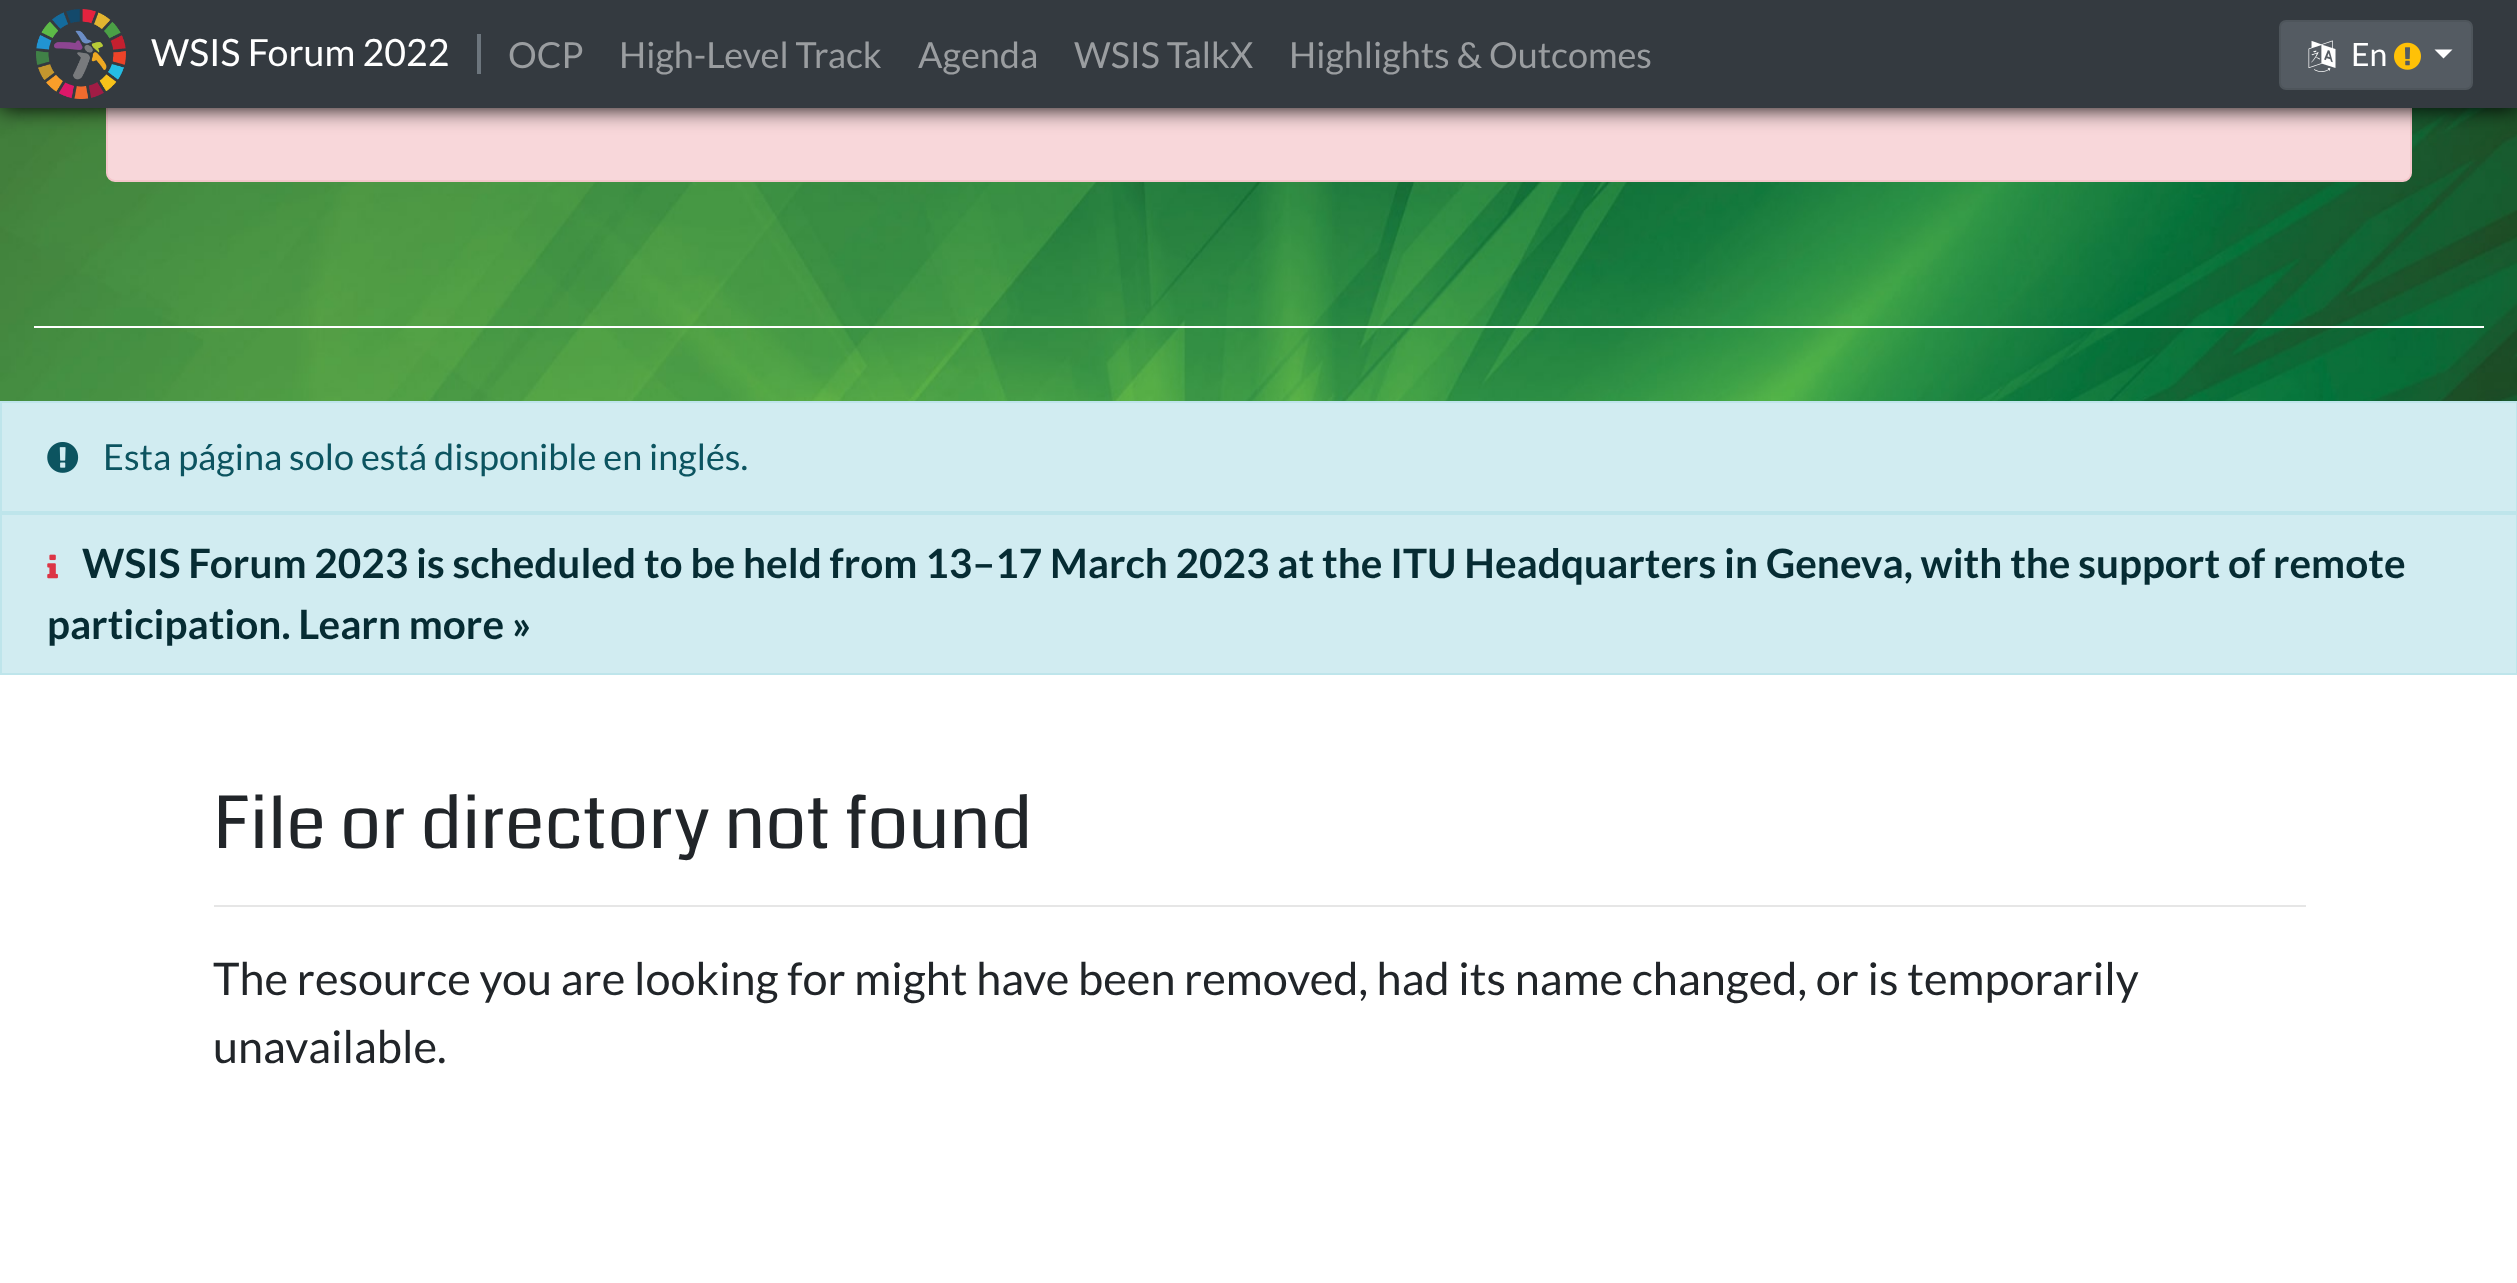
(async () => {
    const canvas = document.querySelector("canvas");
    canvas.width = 2517;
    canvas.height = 1283;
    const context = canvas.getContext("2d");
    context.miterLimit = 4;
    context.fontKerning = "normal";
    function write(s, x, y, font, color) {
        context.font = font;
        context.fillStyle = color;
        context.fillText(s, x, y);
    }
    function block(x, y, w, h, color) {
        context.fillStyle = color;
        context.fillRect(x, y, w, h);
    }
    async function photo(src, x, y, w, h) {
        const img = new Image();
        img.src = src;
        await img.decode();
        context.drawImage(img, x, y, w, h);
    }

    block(0, 0, 2517, 1283, "rgb(255, 255, 255)");
    await photo("media/1.png", 0, 108, 2517, 293);
    block(34, 326, 2450, 2, "rgb(255, 255, 255)");
    context.fillStyle = "rgb(248, 215, 218)";
    context.beginPath();
    context.roundRect(107, 17, 2304, 164, 8);
    context.fill();
    context.strokeStyle = "rgb(245, 198, 203)";
    context.lineWidth = 2;
    context.stroke();
    context.fillStyle = "rgb(0, 0, 0)";
    context.filter = "blur(11px)";
    context.beginPath();
    context.rect(0, 0, 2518, 108);
    context.fill();
    context.filter = "none";
    block(0, 0, 2517, 108, "rgb(52, 58, 64)");
    await photo("media/2.png", 36, 9, 90, 90);
    write("WSIS Forum 2022", 151, 66, "37.5px Lato", "rgb(255, 255, 255)");
    block(477, 34, 4, 40, "rgb(108, 117, 125)");
    write("OCP", 508, 68, "36px Lato", "rgb(154, 157, 160)");
    write("High-Level Track", 619, 68, "36px Lato", "rgb(154, 157, 160)");
    write("Agenda", 918, 68, "36px Lato", "rgb(154, 157, 160)");
    write("WSIS TalkX", 1074, 68, "36px Lato", "rgb(154, 157, 160)");
    write("Highlights & Outcomes", 1289, 68, "36px Lato", "rgb(154, 157, 160)");
    context.fillStyle = "rgb(84, 91, 98)";
    context.beginPath();
    context.roundRect(2280, 21, 192, 68, 6);
    context.fill();
    context.strokeStyle = "rgb(78, 85, 91)";
    context.stroke();
    await photo("media/3.png", 2308, 40, 28, 32);
    write("En", 2351, 66, "32px Lato", "rgb(255, 255, 255)");
    await photo("media/4.png", 2394, 42, 27, 28);
    context.beginPath();
    context.moveTo(2434.5, 49.5);
    context.lineTo(2452.5, 49.5);
    context.lineTo(2443.5, 58.5);
    context.closePath();
    context.fill();
    context.fillStyle = "rgb(209, 236, 241)";
    context.beginPath();
    context.rect(1, 402, 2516, 110);
    context.fill();
    context.strokeStyle = "rgb(190, 229, 235)";
    context.stroke();
    await photo("media/5.png", 47, 442, 32, 31);
    write("Esta página solo está disponible en inglés.", 103, 470, "36px Lato", "rgb(12, 84, 96)");
    context.fillStyle = "rgb(209, 236, 241)";
    context.beginPath();
    context.rect(1, 514, 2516, 160);
    context.fill();
    context.stroke();
    await photo("media/6.png", 47, 554, 11, 25);
    write("WSIS Forum 2023 is scheduled to be held from 13–17 March 2023 at the ITU Headquarters in Geneva, with the support of remote", 82, 578, "bold 40.5px Lato", "rgb(6, 44, 51)");
    write("participation. Learn more »", 47, 639, "bold 40.5px Lato", "rgb(6, 44, 51)");
    write("File or directory not found", 213, 848, "72px Coda", "rgb(33, 37, 41)");
    block(214, 905, 2092, 2, "rgb(230, 230, 230)");
    write("The resource you are looking for might have been removed, had its name changed, or is temporarily", 213, 995, "45px Lato", "rgb(33, 37, 41)");
    write("unavailable.", 213, 1063, "45px Lato", "rgb(33, 37, 41)");
})();
